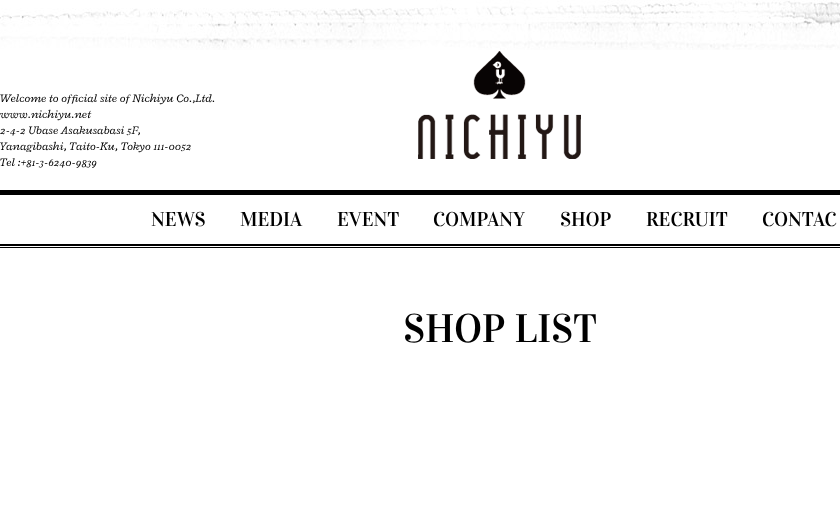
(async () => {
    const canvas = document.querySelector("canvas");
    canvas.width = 840;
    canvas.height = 513;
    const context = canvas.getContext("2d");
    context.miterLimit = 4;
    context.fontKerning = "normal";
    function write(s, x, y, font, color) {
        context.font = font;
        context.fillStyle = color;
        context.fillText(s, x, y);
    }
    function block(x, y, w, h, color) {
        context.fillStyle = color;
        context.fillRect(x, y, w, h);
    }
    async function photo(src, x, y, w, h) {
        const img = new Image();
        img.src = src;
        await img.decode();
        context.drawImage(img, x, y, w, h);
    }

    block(0, 0, 840, 513, "rgb(255, 255, 255)");
    await photo("media/1.png", 0, 0, 840, 50);
    write("Welcome to official site of Nichiyu Co.,Ltd.", 0, 102, "italic 12px Radley", "rgb(0, 0, 0)");
    write("www.nichiyu.net", 0, 118, "italic 12px Radley", "rgb(0, 0, 0)");
    write("2-4-2 Ubase Asakusabasi 5F,", 0, 134, "italic 12px Radley", "rgb(0, 0, 0)");
    write("Yanagibashi, Taito-Ku, Tokyo 111-0052", 0, 150, "italic 12px Radley", "rgb(0, 0, 0)");
    write("Tel :+81-3-6240-9839", 0, 166, "italic 12px Radley", "rgb(0, 0, 0)");
    await photo("media/2.png", 418, 51, 163, 108);
    await photo("media/3.png", 0, 244, 840, 4);
    block(0, 190, 840, 5, "rgb(0, 0, 0)");
    write("NEWS", 151, 226, "20px Vidaloka", "rgb(0, 0, 0)");
    write("MEDIA", 240, 226, "20px Vidaloka", "rgb(0, 0, 0)");
    write("EVENT", 337, 226, "20px Vidaloka", "rgb(0, 0, 0)");
    write("COMPANY", 433, 226, "20px Vidaloka", "rgb(0, 0, 0)");
    write("SHOP", 560, 226, "20px Vidaloka", "rgb(0, 0, 0)");
    write("RECRUIT", 646, 226, "20px Vidaloka", "rgb(0, 0, 0)");
    write("CONTAC", 762, 226, "20px Vidaloka", "rgb(0, 0, 0)");
    write("SHOP LIST", 403, 342, "40px Vidaloka", "rgb(0, 0, 0)");
})();
